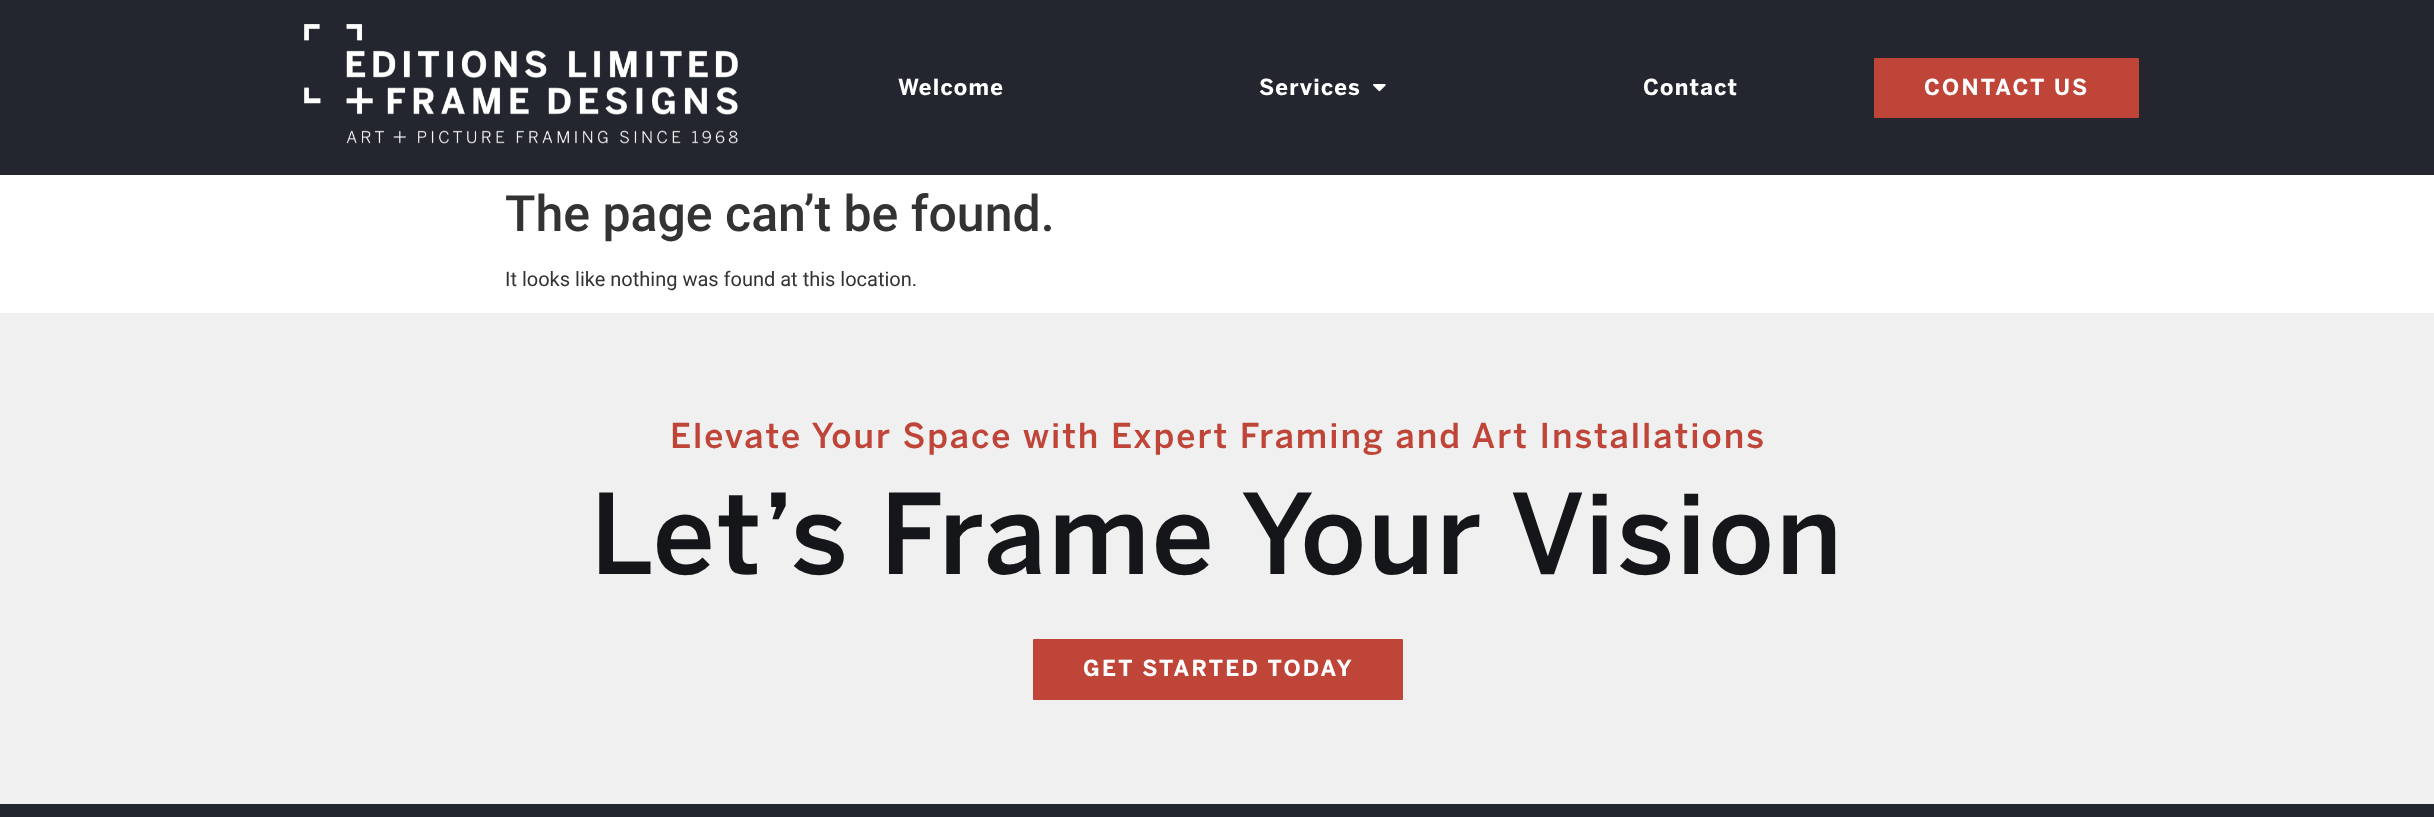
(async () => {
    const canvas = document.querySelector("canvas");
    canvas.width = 2434;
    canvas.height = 817;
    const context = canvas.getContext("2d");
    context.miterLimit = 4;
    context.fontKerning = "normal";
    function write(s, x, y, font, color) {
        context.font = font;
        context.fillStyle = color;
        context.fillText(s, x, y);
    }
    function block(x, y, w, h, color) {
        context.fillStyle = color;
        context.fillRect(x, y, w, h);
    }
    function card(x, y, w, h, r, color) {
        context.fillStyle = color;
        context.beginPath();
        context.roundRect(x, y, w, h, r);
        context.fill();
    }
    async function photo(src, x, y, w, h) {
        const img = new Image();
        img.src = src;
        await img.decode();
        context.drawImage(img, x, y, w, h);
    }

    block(0, 0, 2434, 817, "rgb(255, 255, 255)");
    block(0, 0, 2434, 175, "rgb(35, 38, 46)");
    await photo("media/1.png", 304, 24, 434, 120);
    context.letterSpacing = "1.25px";
    write("Welcome", 898, 95, "bold 22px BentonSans", "rgb(255, 255, 255)");
    write("Services", 1259, 95, "bold 22px BentonSans", "rgb(255, 255, 255)");
    await photo("media/2.png", 1373, 84, 13, 8);
    write("Contact", 1643, 95, "bold 22px BentonSans", "rgb(255, 255, 255)");
    card(1874, 58, 265, 60, 1, "rgb(192, 69, 57)");
    context.letterSpacing = "2.25px";
    write("CONTACT US", 1924, 95, "bold 22px BentonSans", "rgb(255, 255, 255)");
    context.letterSpacing = "0px";
    write("The page can’t be found.", 505, 231, "500 50px Roboto", "rgb(51, 51, 51)");
    write("It looks like nothing was found at this location.", 505, 286, "20px Roboto", "rgb(51, 51, 51)");
    block(0, 313, 2434, 491, "rgb(240, 240, 240)");
    context.letterSpacing = "2px";
    write("Elevate Your Space with Expert Framing and Art Installations", 670, 448, "500 34px BentonSans", "rgb(192, 69, 57)");
    write("Let’s Frame Your Vision", 590, 574, "500 110px BentonSans", "rgb(21, 22, 26)");
    card(1033, 639, 370, 61, 1, "rgb(192, 69, 57)");
    context.letterSpacing = "2.25px";
    write("GET STARTED TODAY", 1083, 676, "bold 22px BentonSans", "rgb(255, 255, 255)");
    block(0, 804, 2434, 13, "rgb(35, 38, 46)");
})();
